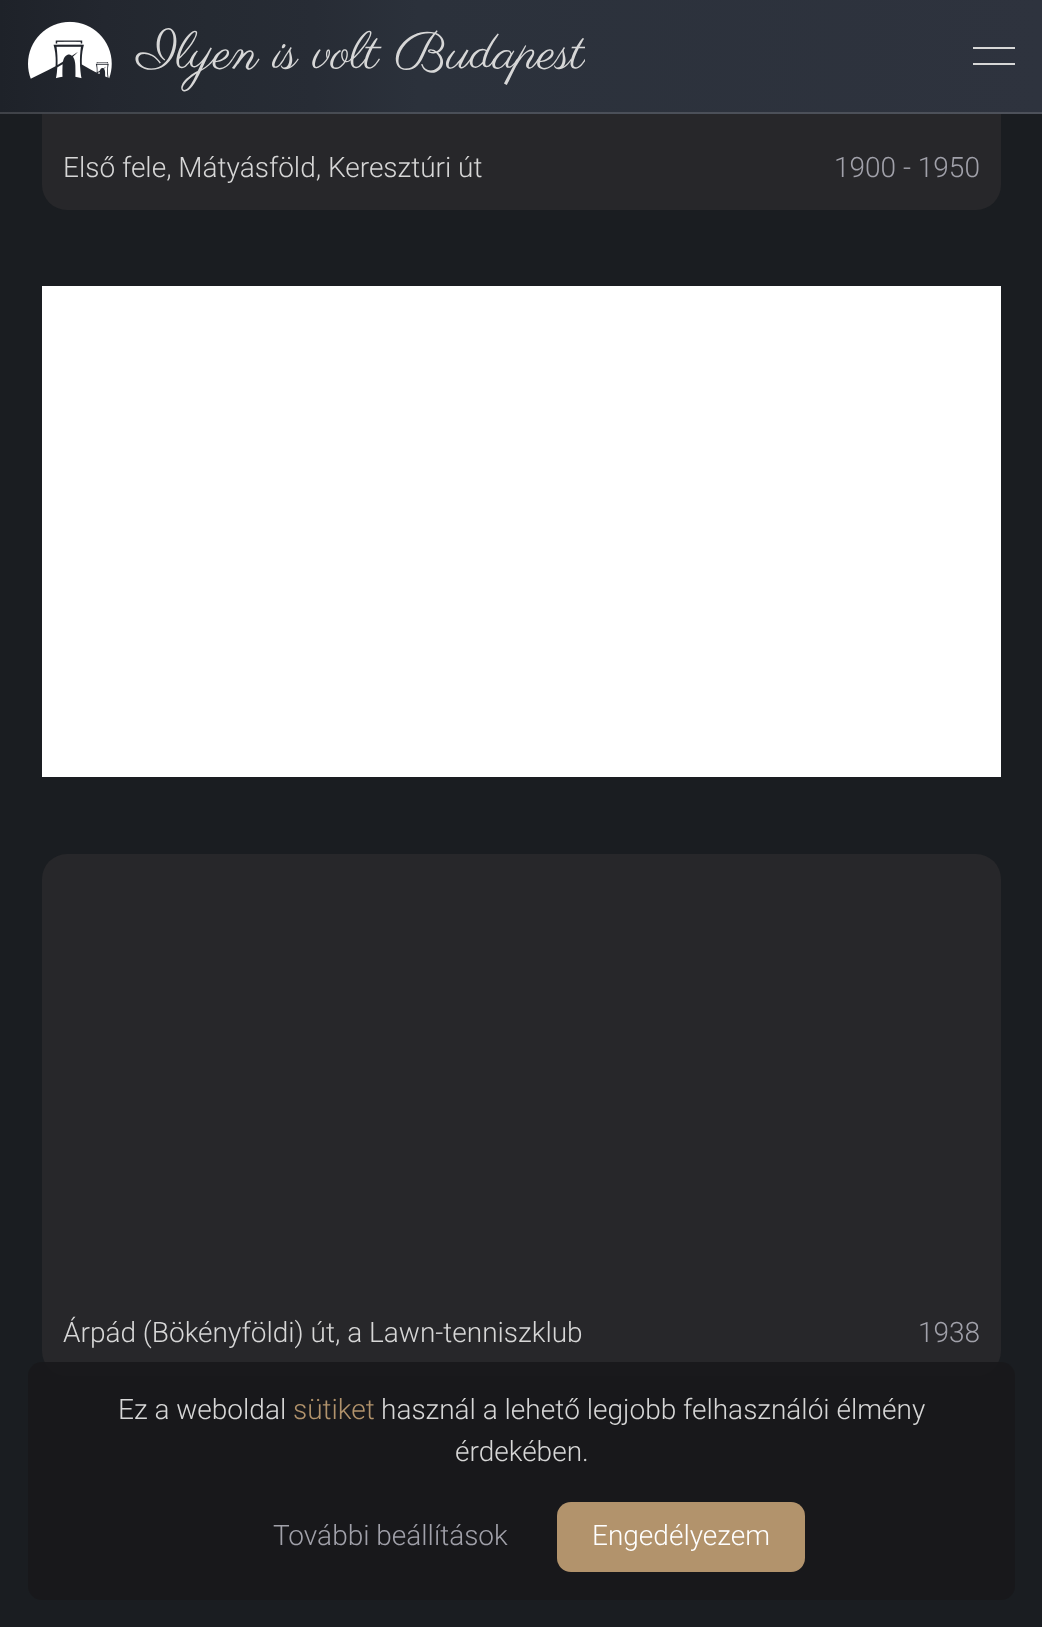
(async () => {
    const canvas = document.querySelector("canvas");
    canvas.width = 1042;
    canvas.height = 1627;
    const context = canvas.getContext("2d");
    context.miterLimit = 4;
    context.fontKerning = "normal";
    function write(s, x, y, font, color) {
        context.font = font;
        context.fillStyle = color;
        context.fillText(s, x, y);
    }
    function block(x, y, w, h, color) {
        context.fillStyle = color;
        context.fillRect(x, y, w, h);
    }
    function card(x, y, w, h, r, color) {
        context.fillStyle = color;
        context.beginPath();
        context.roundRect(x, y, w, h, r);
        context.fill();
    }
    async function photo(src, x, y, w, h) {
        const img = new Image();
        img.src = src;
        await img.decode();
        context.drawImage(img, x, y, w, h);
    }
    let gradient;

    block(0, 0, 1042, 1627, "rgb(26, 29, 33)");
    gradient = context.createLinearGradient(0, 814, 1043, 814);
    gradient.addColorStop(0, "rgb(30, 34, 41)");
    gradient.addColorStop(0.1, "rgb(35, 39, 47)");
    gradient.addColorStop(0.2, "rgb(37, 42, 50)");
    gradient.addColorStop(0.3, "rgb(39, 44, 53)");
    gradient.addColorStop(0.4, "rgb(43, 49, 59)");
    gradient.addColorStop(1, "rgb(46, 51, 62)");
    context.fillStyle = gradient;
    context.fillRect(0, 0, 1042, 114);
    block(0, 112, 1042, 2, "rgba(255, 255, 255, 0.15)");
    await photo("media/1.png", 28, 21, 84, 58);
    context.save();
    context.beginPath();
    context.rect(133, 18, 452, 77);
    context.clip();
    write("Ilyen is volt Budapest", 137, 68, "52.5px Parisienne", "rgb(215, 215, 215)");
    context.restore();
    block(973, 47, 42, 2, "rgb(215, 215, 215)");
    block(973, 63, 42, 2, "rgb(215, 215, 215)");
    block(42, 114, 959, 12, "rgb(39, 39, 42)");
    context.beginPath();
    context.roundRect(42, 126, 959, 84, [0, 0, 25, 25]);
    context.fill();
    write("Első fele, Mátyásföld, Keresztúri út", 63, 177, "300 28px Roboto", "rgb(215, 215, 215)");
    write("1900 - 1950", 834, 177, "300 28px Roboto", "rgb(161, 161, 170)");
    block(42, 286, 959, 491, "rgb(255, 255, 255)");
    context.fillStyle = "rgb(39, 39, 42)";
    context.beginPath();
    context.roundRect(42, 854, 959, 438, [25, 25, 0, 0]);
    context.fill();
    context.beginPath();
    context.roundRect(42, 1292, 959, 84, [0, 0, 25, 25]);
    context.fill();
    write("Árpád (Bökényföldi) út, a Lawn-tenniszklub", 63, 1342, "300 28px Roboto", "rgb(215, 215, 215)");
    write("1938", 918, 1342, "300 28px Roboto", "rgb(161, 161, 170)");
    card(28, 1362, 987, 238, 14, "rgba(24, 24, 27, 0.9)");
    write("Ez a weboldal", 118, 1419, "300 28px Roboto", "rgb(215, 215, 215)");
    write("sütiket", 293, 1419, "300 28px Roboto", "rgb(178, 147, 108)");
    write("használ a lehető legjobb felhasználói élmény", 381, 1419, "300 28px Roboto", "rgb(215, 215, 215)");
    write("érdekében.", 455, 1461, "300 28px Roboto", "rgb(215, 215, 215)");
    write("További beállítások", 273, 1545, "300 28px Roboto", "rgb(161, 161, 170)");
    card(557, 1502, 248, 70, 14, "rgb(178, 147, 108)");
    write("Engedélyezem", 592, 1545, "300 28px Roboto", "rgb(255, 255, 255)");
})();
